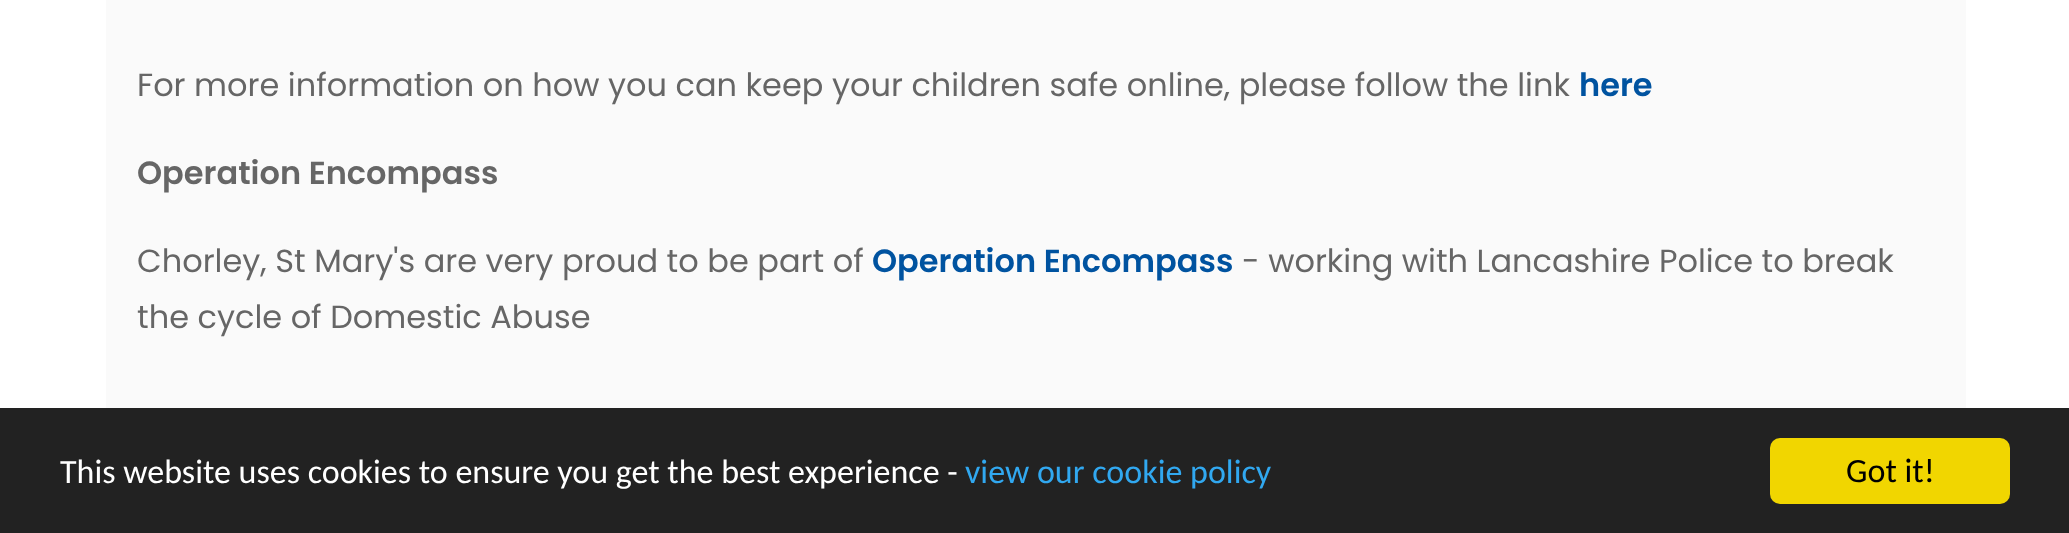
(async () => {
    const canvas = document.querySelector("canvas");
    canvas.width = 2069;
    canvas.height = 533;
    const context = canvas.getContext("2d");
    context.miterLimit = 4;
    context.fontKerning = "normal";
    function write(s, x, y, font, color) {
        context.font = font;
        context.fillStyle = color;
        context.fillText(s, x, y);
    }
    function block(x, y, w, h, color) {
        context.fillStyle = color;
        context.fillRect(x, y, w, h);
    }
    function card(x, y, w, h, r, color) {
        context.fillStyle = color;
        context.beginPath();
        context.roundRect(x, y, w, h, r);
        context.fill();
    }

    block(0, 0, 2069, 533, "rgb(255, 255, 255)");
    block(106, 0, 1860, 408, "rgb(250, 250, 250)");
    write("For more information on how you can keep your children safe online, please follow the link", 137, 96, "32px Poppins", "rgb(102, 102, 102)");
    write("here", 1579, 96, "600 32px Poppins", "rgb(0, 83, 160)");
    write("Operation Encompass", 137, 184, "600 32px Poppins", "rgb(102, 102, 102)");
    write("Chorley, St Mary's are very proud to be part of", 137, 272, "32px Poppins", "rgb(102, 102, 102)");
    write("Operation Encompass", 872, 272, "600 32px Poppins", "rgb(0, 83, 160)");
    write("- working with Lancashire Police to break", 1242, 272, "32px Poppins", "rgb(102, 102, 102)");
    write("the cycle of Domestic Abuse", 137, 328, "32px Poppins", "rgb(102, 102, 102)");
    block(0, 408, 2069, 125, "rgb(34, 34, 34)");
    write("This website uses cookies to ensure you get the best experience -", 60, 483, "34px Carlito", "rgb(255, 255, 255)");
    write("view our cookie policy", 965, 483, "34px Carlito", "rgb(49, 168, 240)");
    card(1770, 438, 240, 66, 10, "rgb(241, 214, 0)");
    write("Got it!", 1846, 482, "34px Carlito", "rgb(0, 0, 0)");
})();
